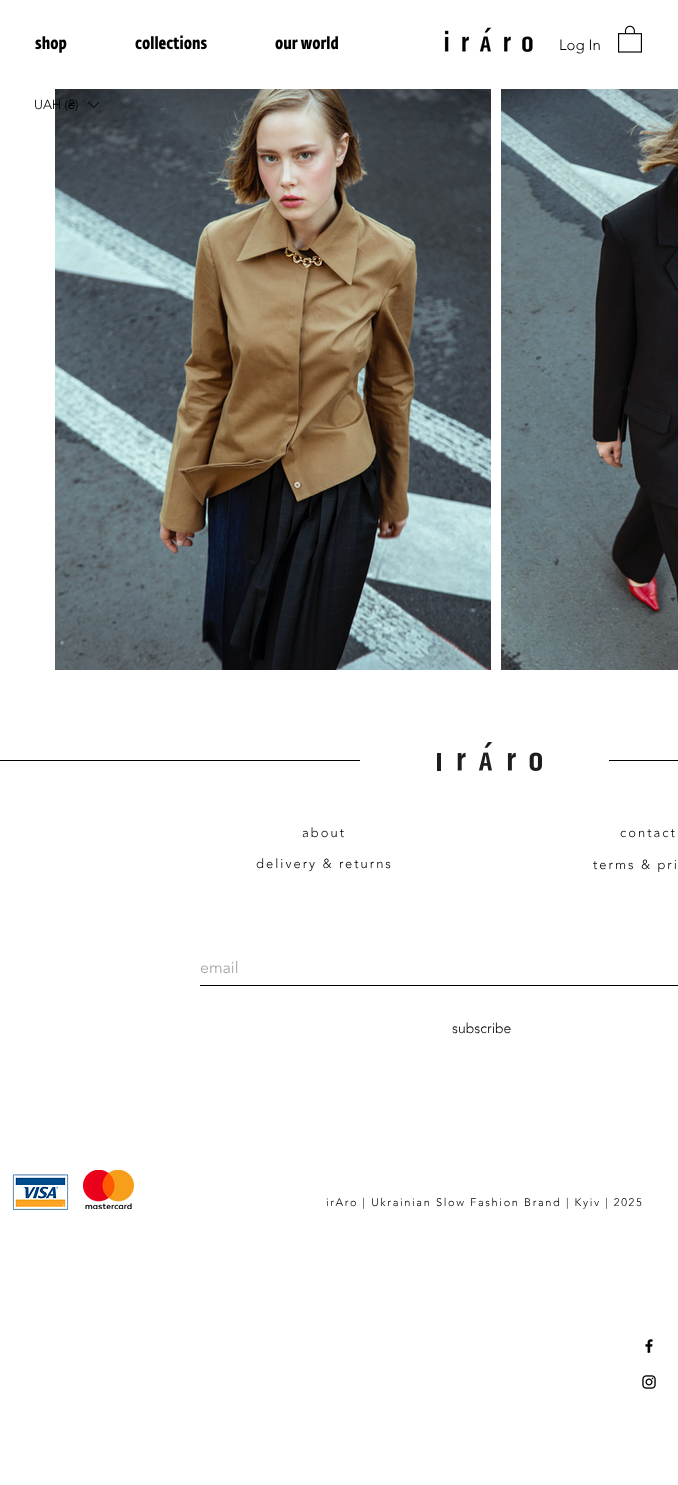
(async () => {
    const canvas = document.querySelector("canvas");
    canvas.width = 678;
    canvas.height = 1485;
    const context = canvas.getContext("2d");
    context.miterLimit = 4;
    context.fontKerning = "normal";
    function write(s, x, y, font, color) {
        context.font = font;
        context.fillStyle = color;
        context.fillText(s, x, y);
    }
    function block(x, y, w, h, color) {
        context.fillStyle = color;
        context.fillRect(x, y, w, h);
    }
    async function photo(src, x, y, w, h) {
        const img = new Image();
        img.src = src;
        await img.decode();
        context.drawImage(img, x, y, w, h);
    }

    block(0, 0, 678, 1485, "rgb(255, 255, 255)");
    await photo("media/1.png", 444, 27, 89, 25);
    await photo("media/2.png", 55, 89, 436, 581);
    await photo("media/3.png", 501, 89, 177, 581);
    write("shop", 35, 49, "bold 17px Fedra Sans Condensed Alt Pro", "rgb(0, 0, 0)");
    write("collections", 135, 49, "bold 17px Fedra Sans Condensed Alt Pro", "rgb(0, 0, 0)");
    write("our world", 275, 49, "bold 17px Fedra Sans Condensed Alt Pro", "rgb(0, 0, 0)");
    write("UAH (", 34, 109, "300 13px 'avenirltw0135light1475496'", "rgb(0, 0, 0)");
    write("₴", 68, 109, "13px Liberation Sans", "rgb(0, 0, 0)");
    write(")", 75, 109, "300 13px 'avenirltw0135light1475496'", "rgb(0, 0, 0)");
    await photo("media/4.png", 88, 101, 12, 7);
    write("Log In", 559, 50, "300 15px 'avenirltw0135light1475496'", "rgb(0, 0, 0)");
    await photo("media/5.png", 618, 25, 24, 28);
    block(0, 760, 678, 1, "rgb(0, 0, 0)");
    block(360, 760, 249, 1, "rgb(255, 255, 255)");
    await photo("media/6.png", 437, 742, 105, 29);
    context.letterSpacing = "2px";
    write("about", 302, 837, "300 13px 'avenirltw0135light1475496'", "rgb(0, 0, 0)");
    write("contact", 620, 837, "300 13px 'avenirltw0135light1475496'", "rgb(0, 0, 0)");
    write("delivery & returns", 256, 868, "300 13px 'avenirltw0135light1475496'", "rgb(0, 0, 0)");
    write("terms & pri", 593, 869, "300 13px 'avenirltw0135light1475496'", "rgb(0, 0, 0)");
    block(200, 985, 478, 1, "rgb(0, 0, 0)");
    context.letterSpacing = "0px";
    write("email", 200, 973, "300 16px 'avenirltw0135light1475496'", "rgb(160, 160, 159)");
    write("subscribe", 452, 1033, "300 14px 'avenirltw0135light1475496'", "rgb(0, 0, 0)");
    await photo("media/7.png", 12, 1174, 57, 36);
    await photo("media/8.png", 83, 1170, 51, 39);
    context.letterSpacing = "1.65px";
    write("irAro | Ukrainian Slow Fashion Brand | Kyiv | 2025", 326, 1206, "300 11px 'avenirltw0135light1475496'", "rgb(0, 0, 0)");
    await photo("media/9.png", 645, 1339, 8, 14);
    await photo("media/10.png", 642, 1375, 14, 14);
})();
